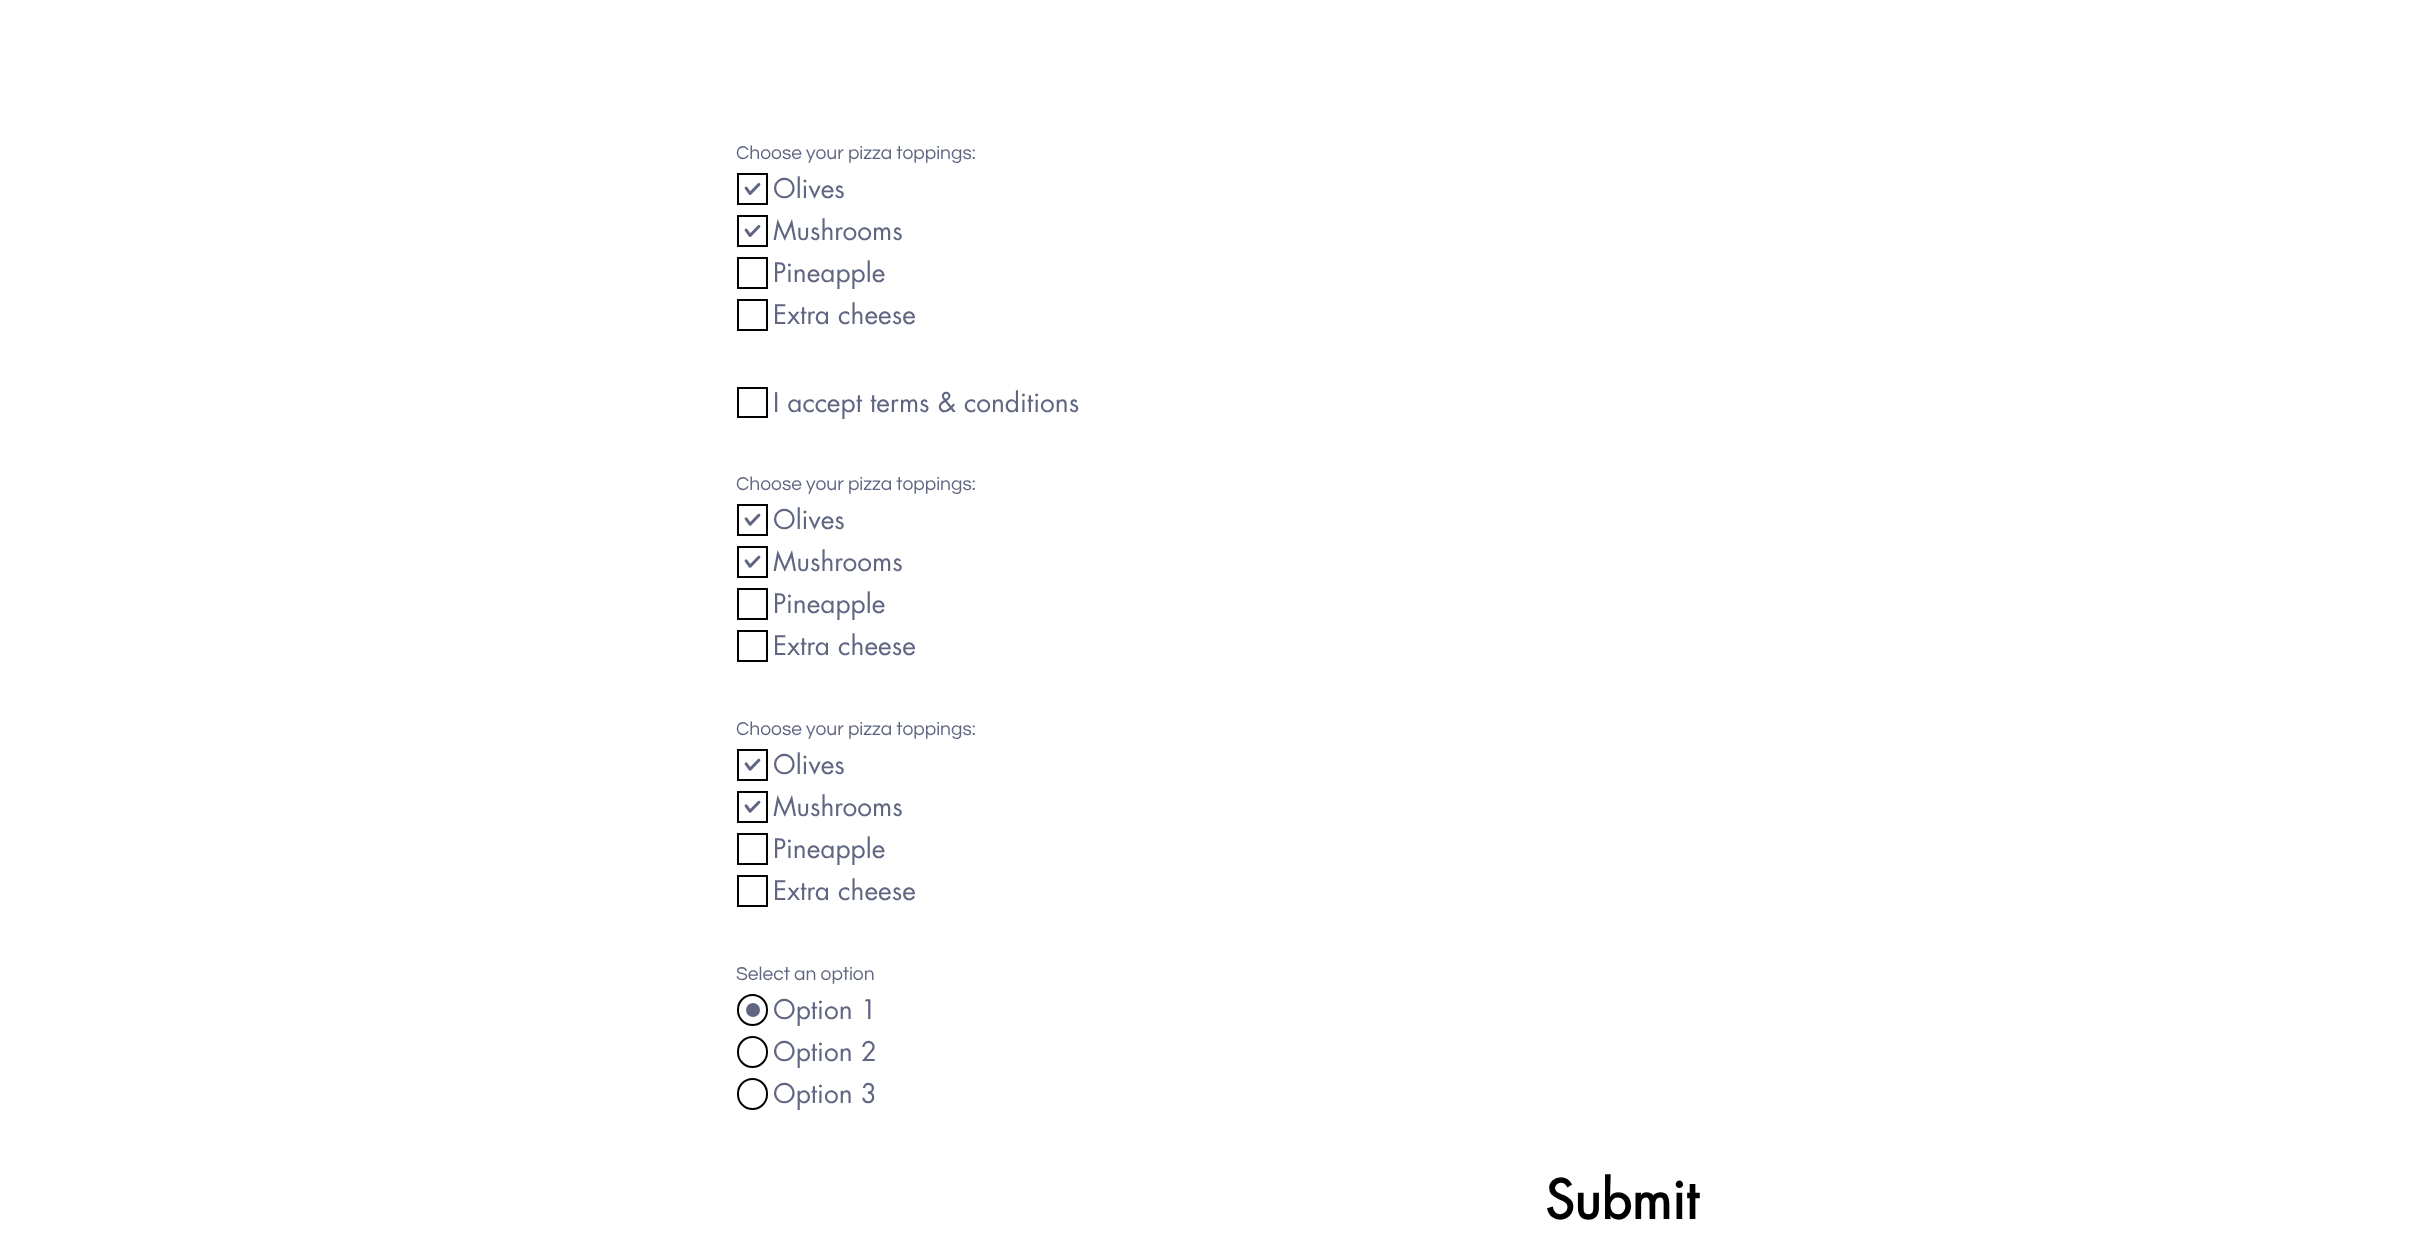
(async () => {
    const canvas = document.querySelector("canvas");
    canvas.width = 2434;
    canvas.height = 1258;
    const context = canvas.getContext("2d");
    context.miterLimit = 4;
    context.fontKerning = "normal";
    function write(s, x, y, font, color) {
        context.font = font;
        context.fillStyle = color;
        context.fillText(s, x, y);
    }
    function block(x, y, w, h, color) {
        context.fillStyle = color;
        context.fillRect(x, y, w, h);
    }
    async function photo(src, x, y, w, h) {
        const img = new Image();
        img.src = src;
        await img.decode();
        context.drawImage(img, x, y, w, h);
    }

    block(0, 0, 2434, 1258, "rgb(255, 255, 255)");
    write("Choose your pizza toppings:", 736, 159, "19.25px Questrial", "rgb(96, 102, 130)");
    context.strokeStyle = "rgb(0, 0, 0)";
    context.lineWidth = 2;
    context.strokeRect(738, 174, 29, 30);
    write("Olives", 773, 198, "26.25px futura", "rgb(96, 102, 130)");
    await photo("media/1.png", 744, 183, 17, 12);
    context.strokeRect(738, 216, 29, 30);
    write("Mushrooms", 773, 240, "26.25px futura", "rgb(96, 102, 130)");
    await photo("media/1.png", 744, 225, 17, 12);
    context.strokeRect(738, 258, 29, 30);
    write("Pineapple", 773, 282, "26.25px futura", "rgb(96, 102, 130)");
    context.strokeRect(738, 300, 29, 30);
    write("Extra cheese", 773, 324, "26.25px futura", "rgb(96, 102, 130)");
    context.strokeRect(738, 388, 29, 29);
    write("I accept terms & conditions", 773, 412, "26.25px futura", "rgb(96, 102, 130)");
    write("Choose your pizza toppings:", 736, 490, "19.25px Questrial", "rgb(96, 102, 130)");
    context.strokeRect(738, 505, 29, 30);
    write("Olives", 773, 529, "26.25px futura", "rgb(96, 102, 130)");
    await photo("media/2.png", 744, 513, 17, 13);
    context.strokeRect(738, 547, 29, 30);
    write("Mushrooms", 773, 571, "26.25px futura", "rgb(96, 102, 130)");
    await photo("media/2.png", 744, 555, 17, 13);
    context.strokeRect(738, 589, 29, 30);
    write("Pineapple", 773, 613, "26.25px futura", "rgb(96, 102, 130)");
    context.strokeRect(738, 631, 29, 30);
    write("Extra cheese", 773, 655, "26.25px futura", "rgb(96, 102, 130)");
    write("Choose your pizza toppings:", 736, 735, "19.25px Questrial", "rgb(96, 102, 130)");
    context.strokeRect(738, 750, 29, 30);
    write("Olives", 773, 774, "26.25px futura", "rgb(96, 102, 130)");
    await photo("media/2.png", 744, 758, 17, 13);
    context.strokeRect(738, 792, 29, 30);
    write("Mushrooms", 773, 816, "26.25px futura", "rgb(96, 102, 130)");
    await photo("media/2.png", 744, 800, 17, 13);
    context.strokeRect(738, 834, 29, 30);
    write("Pineapple", 773, 858, "26.25px futura", "rgb(96, 102, 130)");
    context.strokeRect(738, 876, 29, 30);
    write("Extra cheese", 773, 900, "26.25px futura", "rgb(96, 102, 130)");
    write("Select an option", 736, 980, "19.25px Questrial", "rgb(96, 102, 130)");
    context.beginPath();
    context.roundRect(738, 995, 29, 30, 14.5);
    context.stroke();
    context.beginPath();
    context.arc(753, 1010, 7, 0, Math.PI * 2);
    context.fill();
    write("Option 1", 773, 1019, "26.25px futura", "rgb(96, 102, 130)");
    context.beginPath();
    context.roundRect(738, 1037, 29, 30, 14.5);
    context.stroke();
    write("Option 2", 773, 1061, "26.25px futura", "rgb(96, 102, 130)");
    context.beginPath();
    context.roundRect(738, 1079, 29, 30, 14.5);
    context.stroke();
    write("Option 3", 773, 1103, "26.25px futura", "rgb(96, 102, 130)");
    write("Submit", 1545, 1219, "bold 52.5px futura", "rgb(0, 0, 0)");
})();
